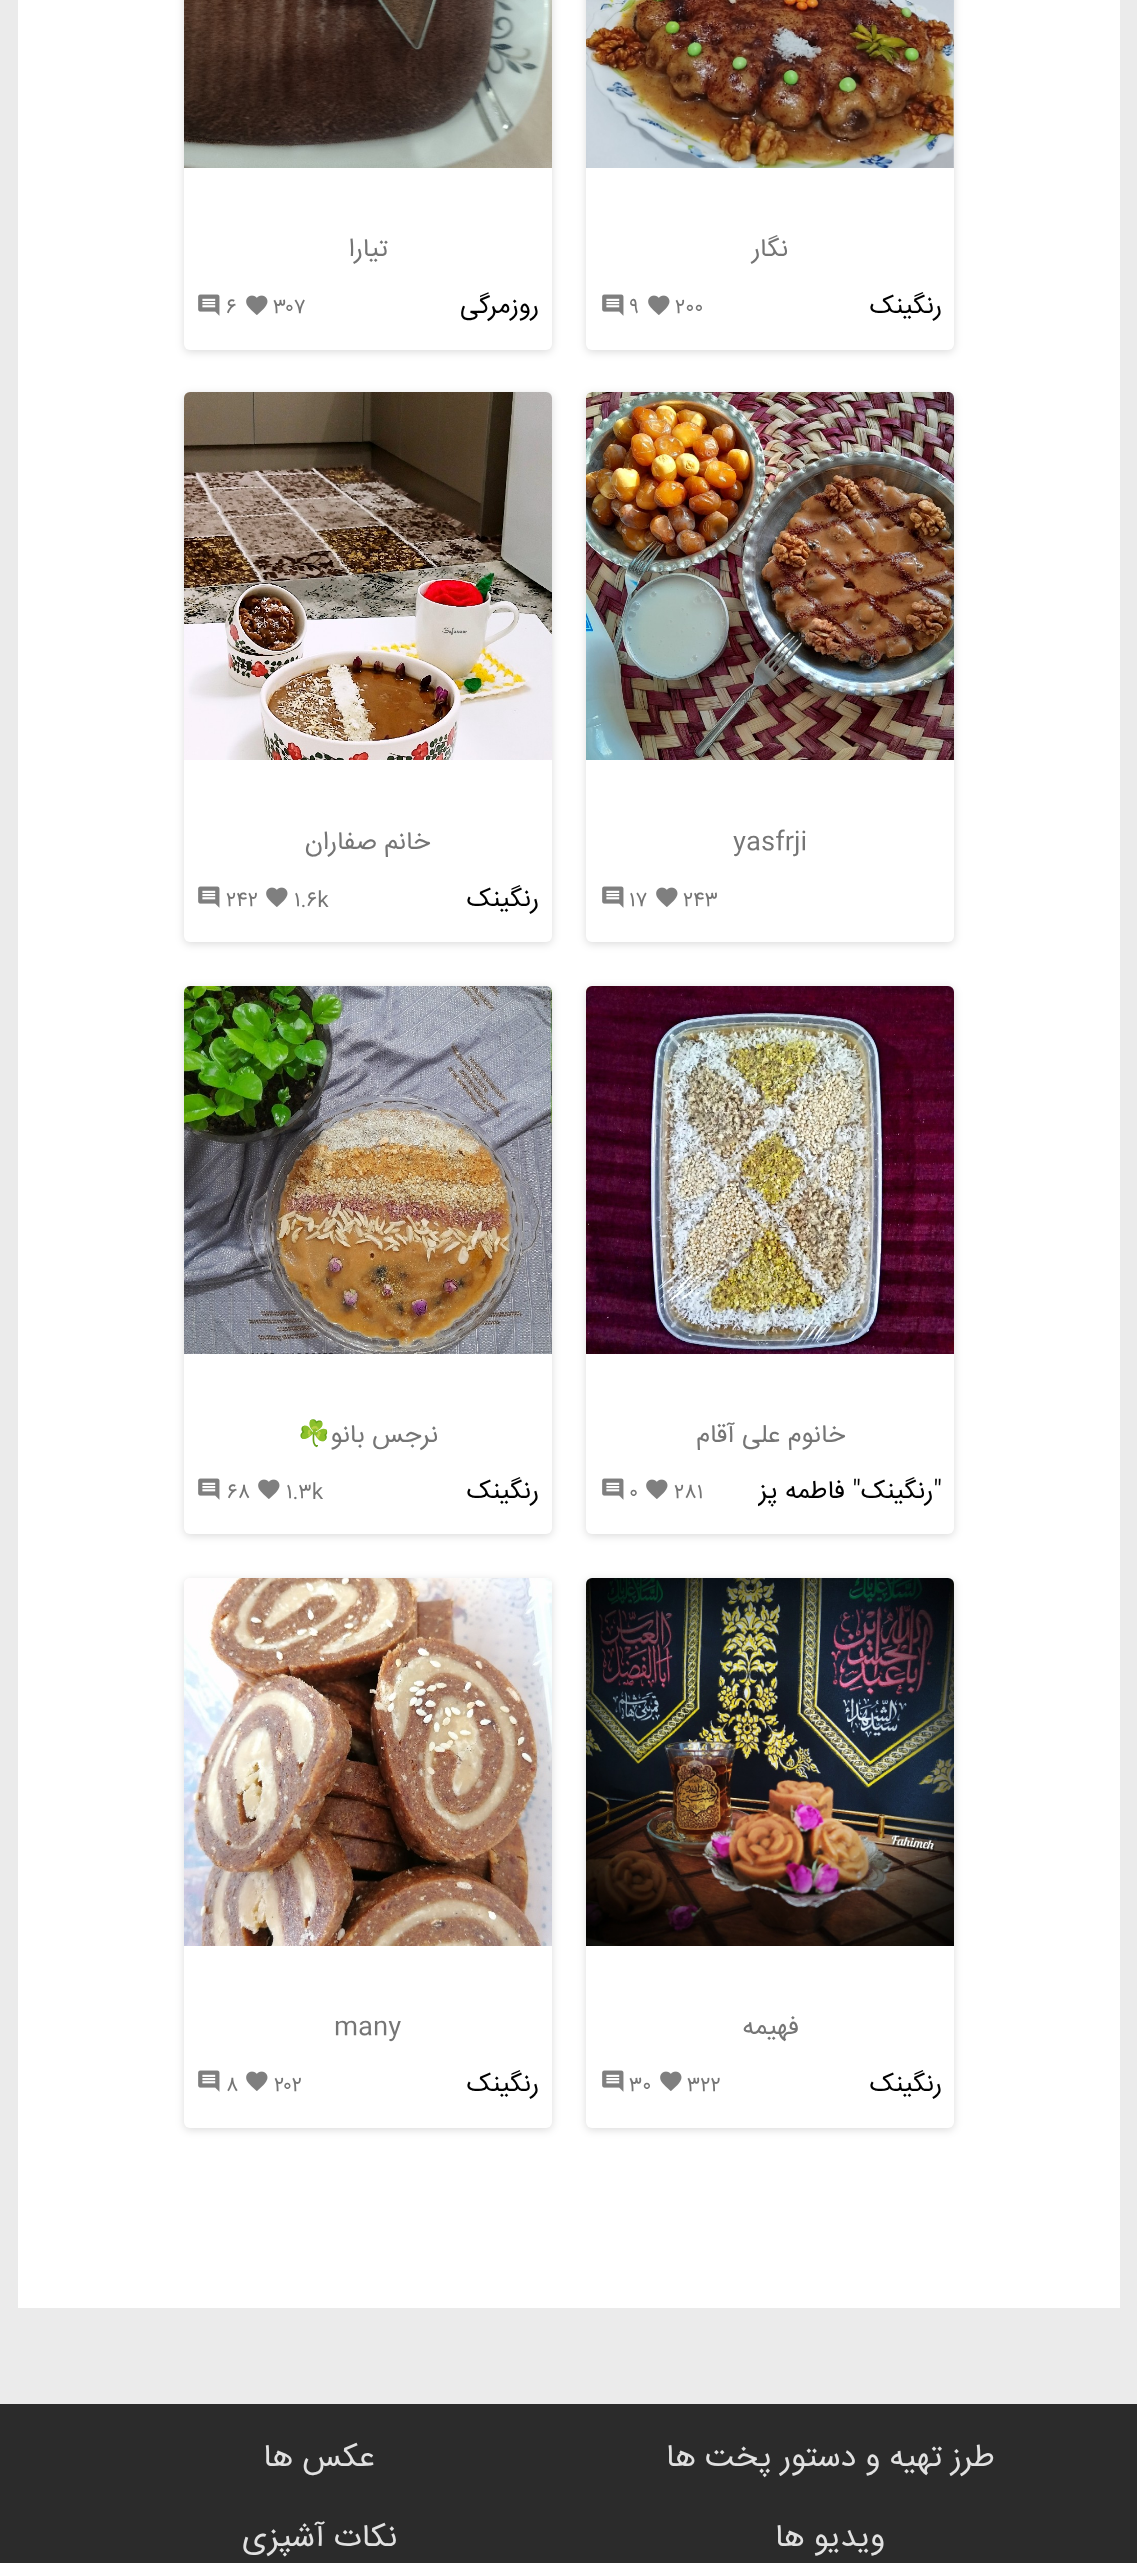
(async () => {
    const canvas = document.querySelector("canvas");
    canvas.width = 1137;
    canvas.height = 2563;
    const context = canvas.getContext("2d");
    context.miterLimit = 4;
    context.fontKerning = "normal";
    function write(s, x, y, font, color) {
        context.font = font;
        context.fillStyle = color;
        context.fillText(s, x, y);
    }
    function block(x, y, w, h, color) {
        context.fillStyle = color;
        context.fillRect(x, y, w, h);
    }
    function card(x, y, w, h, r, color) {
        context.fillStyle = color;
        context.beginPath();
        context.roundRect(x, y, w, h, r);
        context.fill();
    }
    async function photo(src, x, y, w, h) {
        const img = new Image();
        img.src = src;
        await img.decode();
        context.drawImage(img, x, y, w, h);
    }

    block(0, 0, 1137, 2563, "rgb(235, 235, 235)");
    block(18, 0, 1102, 2308, "rgb(255, 255, 255)");
    context.fillStyle = "rgba(0, 0, 0, 0.14)";
    context.filter = "blur(4px)";
    context.beginPath();
    context.roundRect(586, -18, 368, 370, 6);
    context.fill();
    context.filter = "none";
    card(586, -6, 368, 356, 6, "rgb(255, 255, 255)");
    await photo("media/1.png", 586, 0, 368, 168);
    context.direction = "rtl";
    write("نگار", 788, 256, "25.5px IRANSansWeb", "rgb(117, 117, 117)");
    write("رنگینک", 942, 313, "25.5px IRANSansWeb", "rgb(0, 0, 0)");
    context.direction = "ltr";
    write("۲۰۰", 675, 313, "21px IRANSansWeb", "rgb(117, 117, 117)");
    await photo("media/2.png", 648, 295, 22, 20);
    write("۹", 629, 313, "21px IRANSansWeb", "rgb(117, 117, 117)");
    await photo("media/3.png", 602, 294, 22, 22);
    context.fillStyle = "rgba(0, 0, 0, 0.14)";
    context.filter = "blur(4px)";
    context.beginPath();
    context.roundRect(184, -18, 368, 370, 6);
    context.fill();
    context.filter = "none";
    card(184, -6, 368, 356, 6, "rgb(255, 255, 255)");
    await photo("media/4.png", 184, 0, 368, 168);
    context.direction = "rtl";
    write("تیارا", 388, 256, "25.5px IRANSansWeb", "rgb(117, 117, 117)");
    write("روزمرگی", 539, 313, "25.5px IRANSansWeb", "rgb(0, 0, 0)");
    context.direction = "ltr";
    write("۳۰۷", 273, 313, "21px IRANSansWeb", "rgb(117, 117, 117)");
    await photo("media/2.png", 246, 295, 22, 20);
    write("۶", 226, 313, "21px IRANSansWeb", "rgb(117, 117, 117)");
    await photo("media/3.png", 198, 294, 22, 22);
    context.fillStyle = "rgba(0, 0, 0, 0.14)";
    context.filter = "blur(4px)";
    context.beginPath();
    context.roundRect(586, 394, 368, 550, 6);
    context.fill();
    context.filter = "none";
    card(586, 392, 368, 550, 6, "rgb(255, 255, 255)");
    await photo("media/5.png", 586, 392, 368, 368);
    write("yasfrji", 733, 849, "25.5px IRANSansWeb", "rgb(117, 117, 117)");
    write("۲۴۳", 683, 906, "21px IRANSansWeb", "rgb(117, 117, 117)");
    await photo("media/2.png", 656, 887, 22, 20);
    write("۱۷", 629, 906, "21px IRANSansWeb", "rgb(117, 117, 117)");
    await photo("media/3.png", 602, 886, 22, 22);
    context.fillStyle = "rgba(0, 0, 0, 0.14)";
    context.filter = "blur(4px)";
    context.beginPath();
    context.roundRect(184, 394, 368, 550, 6);
    context.fill();
    context.filter = "none";
    card(184, 392, 368, 550, 6, "rgb(255, 255, 255)");
    await photo("media/6.png", 184, 392, 368, 368);
    context.direction = "rtl";
    write("خانم صفاران", 430, 849, "25.5px IRANSansWeb", "rgb(117, 117, 117)");
    write("رنگینک", 539, 906, "25.5px IRANSansWeb", "rgb(0, 0, 0)");
    context.direction = "ltr";
    write("۱.۶k", 294, 906, "21px IRANSansWeb", "rgb(117, 117, 117)");
    await photo("media/2.png", 266, 887, 22, 20);
    write("۲۴۲", 226, 906, "21px IRANSansWeb", "rgb(117, 117, 117)");
    await photo("media/3.png", 198, 886, 22, 22);
    context.fillStyle = "rgba(0, 0, 0, 0.14)";
    context.filter = "blur(4px)";
    context.beginPath();
    context.roundRect(586, 988, 368, 548, 6);
    context.fill();
    context.filter = "none";
    card(586, 986, 368, 548, 6, "rgb(255, 255, 255)");
    await photo("media/7.png", 586, 986, 368, 368);
    context.direction = "rtl";
    write("خانوم علی آقام", 845, 1442, "25.5px IRANSansWeb", "rgb(117, 117, 117)");
    context.save();
    context.beginPath();
    context.rect(758, 1472, 184, 36);
    context.clip();
    write("\"رنگینک\" فاطمه پز", 942, 1498, "25.5px IRANSansWeb", "rgb(0, 0, 0)");
    context.restore();
    context.direction = "ltr";
    write("۲۸۱", 674, 1498, "21px IRANSansWeb", "rgb(117, 117, 117)");
    await photo("media/2.png", 646, 1479, 22, 20);
    write("۰", 629, 1498, "21px IRANSansWeb", "rgb(117, 117, 117)");
    await photo("media/3.png", 602, 1478, 22, 22);
    context.fillStyle = "rgba(0, 0, 0, 0.14)";
    context.filter = "blur(4px)";
    context.beginPath();
    context.roundRect(184, 988, 368, 548, 6);
    context.fill();
    context.filter = "none";
    card(184, 986, 368, 548, 6, "rgb(255, 255, 255)");
    await photo("media/8.png", 184, 986, 368, 368);
    context.direction = "rtl";
    write("نرجس بانو", 438, 1442, "25.5px IRANSansWeb", "rgb(117, 117, 117)");
    write("☘️", 330, 1442, "25.5px Noto Color Emoji", "rgb(117, 117, 117)");
    write("رنگینک", 539, 1498, "25.5px IRANSansWeb", "rgb(0, 0, 0)");
    context.direction = "ltr";
    write("۱.۳k", 286, 1498, "21px IRANSansWeb", "rgb(117, 117, 117)");
    await photo("media/2.png", 258, 1479, 22, 20);
    write("۶۸", 226, 1498, "21px IRANSansWeb", "rgb(117, 117, 117)");
    await photo("media/3.png", 198, 1478, 22, 22);
    context.fillStyle = "rgba(0, 0, 0, 0.14)";
    context.filter = "blur(4px)";
    context.beginPath();
    context.roundRect(586, 1580, 368, 550, 6);
    context.fill();
    context.filter = "none";
    card(586, 1578, 368, 550, 6, "rgb(255, 255, 255)");
    await photo("media/9.png", 586, 1578, 368, 368);
    context.direction = "rtl";
    write("فهیمه", 799, 2034, "25.5px IRANSansWeb", "rgb(117, 117, 117)");
    write("رنگینک", 942, 2091, "25.5px IRANSansWeb", "rgb(0, 0, 0)");
    context.direction = "ltr";
    write("۳۲۲", 687, 2091, "21px IRANSansWeb", "rgb(117, 117, 117)");
    await photo("media/2.png", 660, 2071, 22, 20);
    write("۳۰", 629, 2091, "21px IRANSansWeb", "rgb(117, 117, 117)");
    await photo("media/3.png", 602, 2070, 22, 22);
    context.fillStyle = "rgba(0, 0, 0, 0.14)";
    context.filter = "blur(4px)";
    context.beginPath();
    context.roundRect(184, 1580, 368, 550, 6);
    context.fill();
    context.filter = "none";
    card(184, 1578, 368, 550, 6, "rgb(255, 255, 255)");
    await photo("media/10.png", 184, 1578, 368, 368);
    write("many", 334, 2034, "25.5px IRANSansWeb", "rgb(117, 117, 117)");
    context.direction = "rtl";
    write("رنگینک", 539, 2091, "25.5px IRANSansWeb", "rgb(0, 0, 0)");
    context.direction = "ltr";
    write("۲۰۲", 274, 2091, "21px IRANSansWeb", "rgb(117, 117, 117)");
    await photo("media/2.png", 246, 2071, 22, 20);
    write("۸", 226, 2091, "21px IRANSansWeb", "rgb(117, 117, 117)");
    await photo("media/3.png", 198, 2070, 22, 22);
    block(0, 2404, 1137, 159, "rgb(43, 43, 43)");
    context.direction = "rtl";
    write("طرز تهیه و دستور پخت ها", 995, 2466, "32px IRANSansWeb", "rgb(225, 225, 225)");
    write("عکس ها", 375, 2466, "32px IRANSansWeb", "rgb(225, 225, 225)");
    write("ویدیو ها", 885, 2546, "32px IRANSansWeb", "rgb(225, 225, 225)");
    write("نکات آشپزی", 397, 2546, "32px IRANSansWeb", "rgb(225, 225, 225)");
})();
